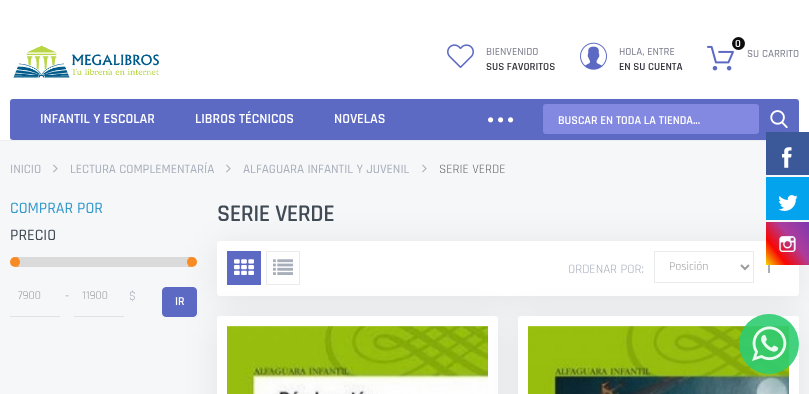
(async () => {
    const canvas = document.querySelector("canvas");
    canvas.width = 809;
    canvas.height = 394;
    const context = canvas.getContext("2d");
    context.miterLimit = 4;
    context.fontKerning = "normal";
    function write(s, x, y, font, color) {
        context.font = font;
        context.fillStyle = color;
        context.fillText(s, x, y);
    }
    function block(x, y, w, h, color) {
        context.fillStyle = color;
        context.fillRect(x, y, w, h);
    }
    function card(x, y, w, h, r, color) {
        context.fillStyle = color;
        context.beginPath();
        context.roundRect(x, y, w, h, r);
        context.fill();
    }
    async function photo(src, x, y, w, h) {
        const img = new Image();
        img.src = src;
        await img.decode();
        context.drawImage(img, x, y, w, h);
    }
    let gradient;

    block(0, 0, 809, 394, "rgb(246, 247, 249)");
    block(0, 0, 809, 140, "rgb(255, 255, 255)");
    block(0, 140, 766, 1, "rgb(238, 238, 238)");
    await photo("media/1.png", 13, 45, 146, 33);
    await photo("media/2.png", 447, 44, 27, 24);
    write("BIENVENIDO", 486, 55, "500 11px Rajdhani", "rgb(124, 124, 141)");
    write("SUS FAVORITOS", 486, 70, "600 11px Rajdhani", "rgb(52, 52, 60)");
    await photo("media/3.png", 580, 42, 27, 28);
    write("HOLA, ENTRE", 619, 55, "500 11px Rajdhani", "rgb(124, 124, 141)");
    write("EN SU CUENTA", 619, 70, "600 11px Rajdhani", "rgb(52, 52, 60)");
    await photo("media/4.png", 707, 45, 27, 26);
    context.fillStyle = "rgb(13, 13, 13)";
    context.beginPath();
    context.arc(738.5, 43.5, 6.5, 0, Math.PI * 2);
    context.fill();
    write("0", 735, 47, "600 11px Rajdhani", "rgb(255, 255, 255)");
    write("SU CARRITO", 747, 57, "500 11px Rajdhani", "rgb(124, 124, 141)");
    card(10, 99, 789, 41, 3, "rgb(92, 106, 195)");
    write("INFANTIL Y ESCOLAR", 40, 123, "600 14px Rajdhani", "rgb(255, 255, 255)");
    write("LIBROS TÉCNICOS", 195, 123, "600 14px Rajdhani", "rgb(255, 255, 255)");
    write("NOVELAS", 334, 123, "600 14px Rajdhani", "rgb(255, 255, 255)");
    await photo("media/5.png", 488, 117, 6, 6);
    await photo("media/5.png", 498, 117, 6, 6);
    await photo("media/5.png", 508, 117, 6, 6);
    card(543, 104, 216, 30, 3, "rgb(131, 137, 225)");
    write("BUSCAR EN TODA LA TIENDA...", 558, 124, "600 12px Rajdhani", "rgb(255, 255, 255)");
    await photo("media/6.png", 770, 110, 18, 19);
    write("INICIO", 10, 173, "500 13px Rajdhani", "rgb(168, 174, 186)");
    await photo("media/7.png", 53, 164, 5, 9);
    write("LECTURA COMPLEMENTARÍA", 70, 173, "500 13px Rajdhani", "rgb(168, 174, 186)");
    await photo("media/7.png", 226, 164, 5, 9);
    write("ALFAGUARA INFANTIL Y JUVENIL", 243, 173, "500 13px Rajdhani", "rgb(168, 174, 186)");
    await photo("media/7.png", 422, 164, 5, 9);
    write("SERIE VERDE", 439, 173, "13px Rajdhani", "rgb(99, 99, 99)");
    write("COMPRAR POR", 10, 213, "500 16px Rajdhani", "rgb(51, 153, 204)");
    write("PRECIO", 10, 240, "500 16px Rajdhani", "rgb(65, 75, 86)");
    context.fillStyle = "rgba(0, 0, 0, 0.08)";
    context.filter = "blur(17px)";
    context.beginPath();
    context.roundRect(217, 245, 582, 55, 3);
    context.fill();
    context.filter = "none";
    card(15, 257, 177, 10, 3, "rgb(249, 139, 37)");
    card(15, 257, 177, 10, 5, "rgb(218, 218, 218)");
    context.fillStyle = "rgb(249, 139, 37)";
    context.beginPath();
    context.arc(15, 262, 5, 0, Math.PI * 2);
    context.fill();
    context.beginPath();
    context.arc(192, 262, 5, 0, Math.PI * 2);
    context.fill();
    block(10, 316, 50, 1, "rgb(225, 225, 225)");
    write("7900", 18, 299, "12px Rajdhani", "rgb(156, 156, 156)");
    write("-", 65, 300, "13px Rajdhani", "rgb(168, 174, 186)");
    block(74, 316, 50, 1, "rgb(225, 225, 225)");
    write("11900", 82, 299, "12px Rajdhani", "rgb(156, 156, 156)");
    write("$", 129, 300, "13px Rajdhani", "rgb(168, 174, 186)");
    context.fillStyle = "rgb(92, 106, 195)";
    context.beginPath();
    context.roundRect(162.5, 287.5, 34, 29, 3.5);
    context.fill();
    context.strokeStyle = "rgb(92, 106, 195)";
    context.stroke();
    write("IR", 175, 305, "600 12px Rajdhani", "rgb(255, 255, 255)");
    context.letterSpacing = "-0.5px";
    write("SERIE VERDE", 217, 221, "600 24px Rajdhani", "rgb(65, 75, 86)");
    card(217, 241, 582, 55, 3, "rgb(255, 255, 255)");
    block(227, 251, 34, 34, "rgb(92, 106, 195)");
    await photo("media/8.png", 234, 259, 20, 16);
    context.strokeStyle = "rgb(233, 234, 236)";
    context.strokeRect(266.5, 251.5, 33, 33);
    await photo("media/9.png", 273, 259, 20, 16);
    context.letterSpacing = "0px";
    write("ORDENAR POR:", 568, 273, "13px Rajdhani", "rgb(168, 174, 186)");
    context.strokeRect(654.5, 251.5, 99, 31);
    context.beginPath();
    context.moveTo(741, 265);
    context.lineTo(745, 269);
    context.lineTo(749, 265);
    context.strokeStyle = "rgb(156, 156, 156)";
    context.lineWidth = 2;
    context.stroke();
    write("Posición", 669, 270, "12px Rajdhani", "rgb(156, 156, 156)");
    await photo("media/10.png", 768, 265, 2, 8);
    context.fillStyle = "rgba(0, 0, 0, 0.08)";
    context.filter = "blur(17px)";
    context.beginPath();
    context.roundRect(217, 320, 281, 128, 3);
    context.fill();
    context.filter = "none";
    card(217, 316, 281, 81, 3, "rgb(255, 255, 255)");
    await photo("media/11.png", 227, 326, 261, 68);
    context.fillStyle = "rgba(0, 0, 0, 0.08)";
    context.filter = "blur(17px)";
    context.beginPath();
    context.roundRect(518, 320, 281, 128, 3);
    context.fill();
    context.filter = "none";
    card(518, 316, 281, 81, 3, "rgb(255, 255, 255)");
    await photo("media/12.png", 528, 326, 261, 68);
    block(766, 132, 43, 43, "rgb(59, 89, 152)");
    await photo("media/13.png", 782, 147, 10, 21);
    block(766, 177, 43, 43, "rgb(3, 164, 237)");
    await photo("media/14.png", 778, 195, 20, 16);
    gradient = context.createLinearGradient(764, 262, 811, 225);
    gradient.addColorStop(0, "rgb(247, 212, 0)");
    gradient.addColorStop(0.27, "rgb(248, 7, 0)");
    gradient.addColorStop(0.6, "rgb(174, 60, 155)");
    gradient.addColorStop(1, "rgb(125, 57, 176)");
    context.fillStyle = gradient;
    context.fillRect(766, 222, 43, 43);
    await photo("media/15.png", 779, 236, 17, 16);
    context.fillStyle = "rgba(46, 204, 113, 0.9)";
    context.beginPath();
    context.arc(769, 344, 30, 0, Math.PI * 2);
    context.fill();
    await photo("media/16.png", 752, 326, 35, 35);
})();
